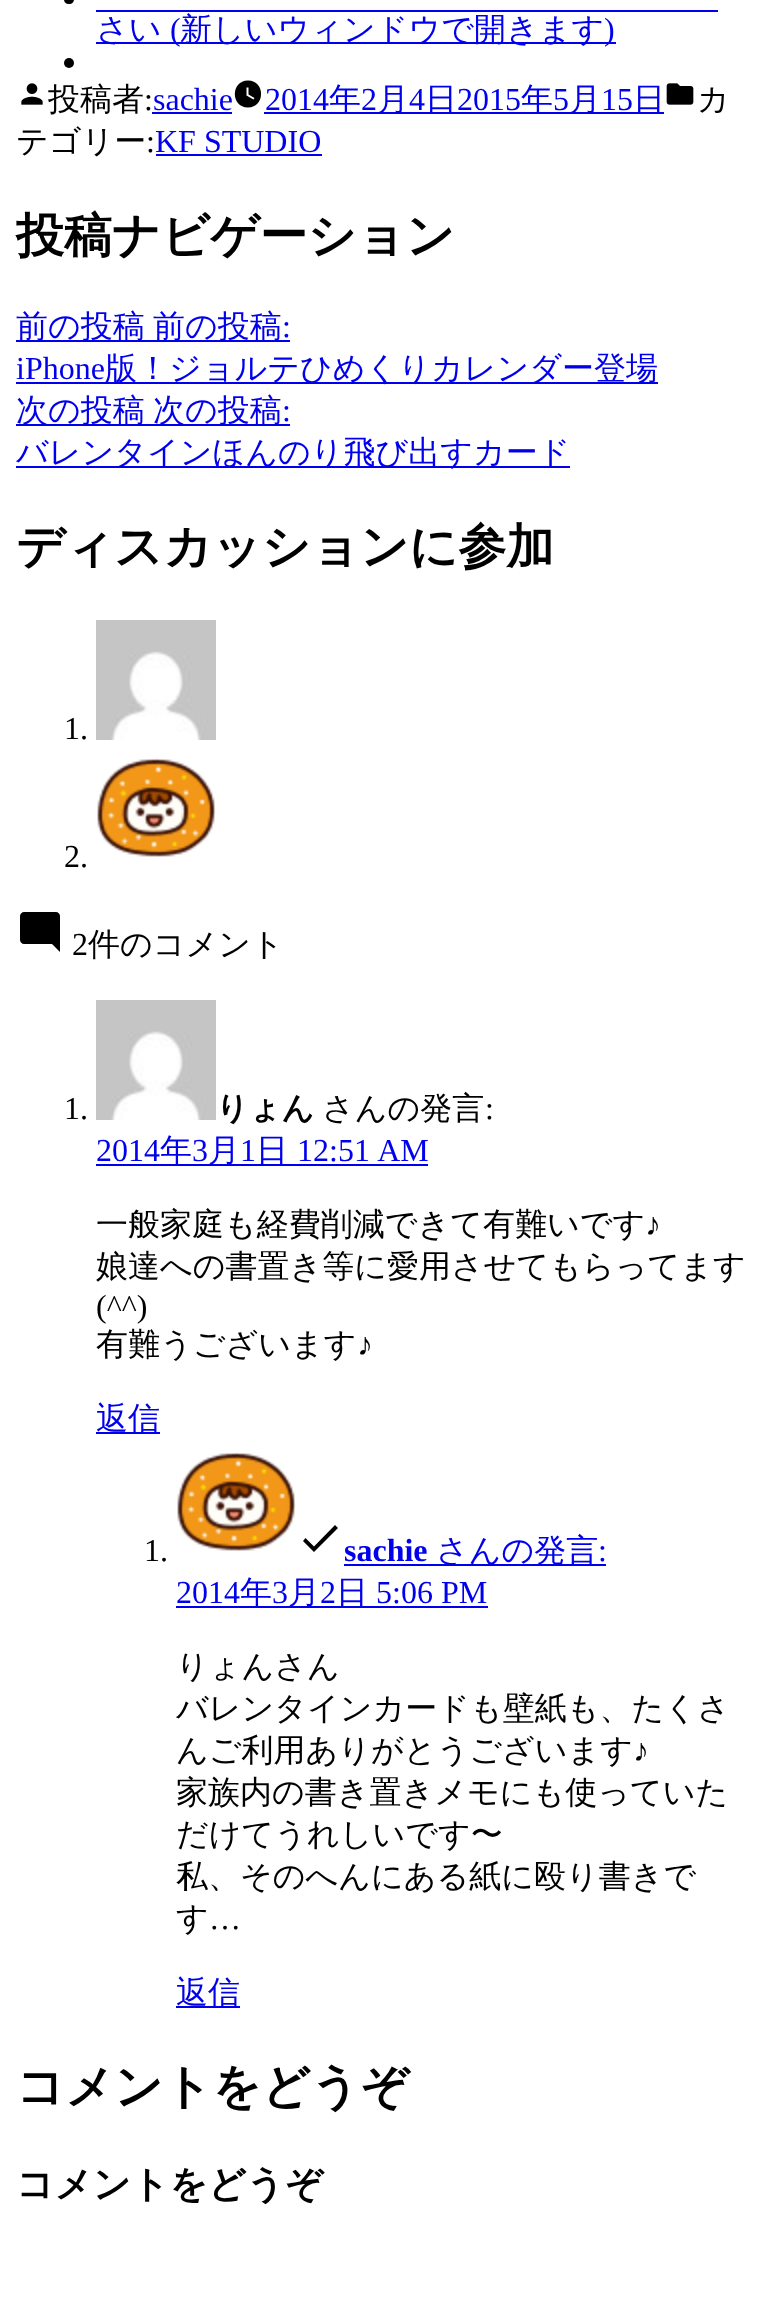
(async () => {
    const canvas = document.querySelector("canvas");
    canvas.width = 765;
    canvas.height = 2320;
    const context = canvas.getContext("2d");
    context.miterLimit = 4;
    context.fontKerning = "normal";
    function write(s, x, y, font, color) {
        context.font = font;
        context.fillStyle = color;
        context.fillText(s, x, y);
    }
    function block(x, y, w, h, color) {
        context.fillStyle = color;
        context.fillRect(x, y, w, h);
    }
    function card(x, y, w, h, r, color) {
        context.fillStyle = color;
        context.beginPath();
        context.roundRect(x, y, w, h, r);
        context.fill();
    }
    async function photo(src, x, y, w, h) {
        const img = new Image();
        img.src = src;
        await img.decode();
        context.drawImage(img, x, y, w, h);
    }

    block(0, 0, 765, 2320, "rgb(255, 255, 255)");
    card(64, -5, 10, 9, 5, "rgb(0, 0, 0)");
    block(96, 42, 520, 2, "rgb(0, 0, 238)");
    write("さい", 96, 40, "500 32px WenQuanYi Zen Hei", "rgb(0, 0, 238)");
    write("(", 170, 40, "32px Liberation Serif", "rgb(0, 0, 238)");
    write("新しいウィンドウで開きます", 180, 40, "500 32px WenQuanYi Zen Hei", "rgb(0, 0, 238)");
    block(96, 10, 622, 2, "rgb(0, 0, 238)");
    write(")", 604, 40, "32px Liberation Serif", "rgb(0, 0, 238)");
    context.fillStyle = "rgb(0, 0, 0)";
    context.beginPath();
    context.arc(69, 63, 5, 0, Math.PI * 2);
    context.fill();
    await photo("media/1.png", 21, 83, 22, 22);
    write("投稿者", 48, 110, "500 32px WenQuanYi Zen Hei", "rgb(0, 0, 0)");
    write(":", 144, 110, "32px Liberation Serif", "rgb(0, 0, 0)");
    block(152, 112, 80, 2, "rgb(0, 0, 238)");
    write("sachie", 153, 110, "32px Liberation Serif", "rgb(0, 0, 238)");
    write("2014", 265, 110, "32px Liberation Serif", "rgb(0, 0, 238)");
    context.fillStyle = "rgb(0, 0, 0)";
    context.beginPath();
    context.moveTo(248, 80.5);
    context.bezierCurveTo(230.5, 80.5, 230.5, 107.5, 248, 107.5);
    context.bezierCurveTo(265.5, 107.5, 265.5, 80.5, 248, 80.5);
    context.closePath();
    context.moveTo(253.5, 99.5);
    context.lineTo(246.5, 95.5);
    context.lineTo(246.5, 87.5);
    context.lineTo(248.5, 87.5);
    context.lineTo(248.5, 94.5);
    context.lineTo(254.5, 98);
    context.closePath();
    context.fill();
    block(264, 112, 400, 2, "rgb(0, 0, 238)");
    write("年", 329, 110, "500 32px WenQuanYi Zen Hei", "rgb(0, 0, 238)");
    write("2", 361, 110, "32px Liberation Serif", "rgb(0, 0, 238)");
    write("月", 377, 110, "500 32px WenQuanYi Zen Hei", "rgb(0, 0, 238)");
    write("4", 409, 110, "32px Liberation Serif", "rgb(0, 0, 238)");
    write("日", 425, 110, "500 32px WenQuanYi Zen Hei", "rgb(0, 0, 238)");
    write("2015", 457, 110, "32px Liberation Serif", "rgb(0, 0, 238)");
    write("年", 521, 110, "500 32px WenQuanYi Zen Hei", "rgb(0, 0, 238)");
    write("5", 553, 110, "32px Liberation Serif", "rgb(0, 0, 238)");
    write("月", 569, 110, "500 32px WenQuanYi Zen Hei", "rgb(0, 0, 238)");
    write("15", 601, 110, "32px Liberation Serif", "rgb(0, 0, 238)");
    write("日", 633, 110, "500 32px WenQuanYi Zen Hei", "rgb(0, 0, 238)");
    await photo("media/2.png", 666, 83, 28, 22);
    write("カ", 697, 110, "500 32px WenQuanYi Zen Hei", "rgb(0, 0, 0)");
    write("テゴリー", 16, 152, "500 32px WenQuanYi Zen Hei", "rgb(0, 0, 0)");
    write(":", 146, 152, "32px Liberation Serif", "rgb(0, 0, 0)");
    block(156, 154, 166, 2, "rgb(0, 0, 238)");
    write("KF STUDIO", 155, 152, "32px Liberation Serif", "rgb(0, 0, 238)");
    write("投稿ナビゲーション", 16, 252, "bold 48px WenQuanYi Zen Hei", "rgb(0, 0, 0)");
    block(16, 340, 274, 2, "rgb(0, 0, 238)");
    write("前の投稿", 16, 337, "500 32px WenQuanYi Zen Hei", "rgb(0, 0, 238)");
    write("前の投稿", 153, 337, "500 32px WenQuanYi Zen Hei", "rgb(0, 0, 238)");
    write(":", 282, 337, "32px Liberation Serif", "rgb(0, 0, 238)");
    write("iPhone", 16, 379, "32px Liberation Serif", "rgb(0, 0, 238)");
    block(16, 382, 642, 2, "rgb(0, 0, 238)");
    write("版！ジョルテひめくりカレンダー登場", 105, 379, "500 32px WenQuanYi Zen Hei", "rgb(0, 0, 238)");
    block(16, 424, 274, 2, "rgb(0, 0, 238)");
    write("次の投稿", 16, 421, "500 32px WenQuanYi Zen Hei", "rgb(0, 0, 238)");
    write("次の投稿", 153, 421, "500 32px WenQuanYi Zen Hei", "rgb(0, 0, 238)");
    write(":", 282, 421, "32px Liberation Serif", "rgb(0, 0, 238)");
    block(16, 466, 554, 2, "rgb(0, 0, 238)");
    write("バレンタインほんのり飛び出すカード", 16, 463, "500 32px WenQuanYi Zen Hei", "rgb(0, 0, 238)");
    write("ディスカッションに参加", 16, 563, "bold 48px WenQuanYi Zen Hei", "rgb(0, 0, 0)");
    write("1.", 64, 739, "32px Liberation Serif", "rgb(0, 0, 0)");
    await photo("media/3.png", 96, 620, 120, 120);
    write("2.", 64, 867, "32px Liberation Serif", "rgb(0, 0, 0)");
    await photo("media/4.png", 97, 758, 119, 99);
    context.beginPath();
    context.moveTo(60, 916);
    context.bezierCurveTo(60, 914, 58, 912, 56, 912);
    context.lineTo(24, 912);
    context.bezierCurveTo(22, 912, 20, 914, 20, 916);
    context.lineTo(20, 940);
    context.bezierCurveTo(20, 942, 22, 944, 24, 944);
    context.lineTo(52, 944);
    context.lineTo(60, 952);
    context.closePath();
    context.fill();
    write("2", 72, 955, "32px Liberation Serif", "rgb(0, 0, 0)");
    write("件のコメント", 88, 955, "500 32px WenQuanYi Zen Hei", "rgb(0, 0, 0)");
    write("1.", 64, 1119, "32px Liberation Serif", "rgb(0, 0, 0)");
    await photo("media/3.png", 96, 1000, 120, 120);
    write("りょん", 216, 1119, "bold 32px WenQuanYi Zen Hei", "rgb(0, 0, 0)");
    write("さんの発言", 322, 1119, "500 32px WenQuanYi Zen Hei", "rgb(0, 0, 0)");
    write(":", 485, 1119, "32px Liberation Serif", "rgb(0, 0, 0)");
    write("2014", 96, 1161, "32px Liberation Serif", "rgb(0, 0, 238)");
    block(96, 1164, 332, 2, "rgb(0, 0, 238)");
    write("年", 160, 1161, "500 32px WenQuanYi Zen Hei", "rgb(0, 0, 238)");
    write("3", 192, 1161, "32px Liberation Serif", "rgb(0, 0, 238)");
    write("月", 208, 1161, "500 32px WenQuanYi Zen Hei", "rgb(0, 0, 238)");
    write("1", 240, 1161, "32px Liberation Serif", "rgb(0, 0, 238)");
    write("日", 256, 1161, "500 32px WenQuanYi Zen Hei", "rgb(0, 0, 238)");
    context.wordSpacing = "1px";
    write("12:51 AM", 297, 1161, "32px Liberation Serif", "rgb(0, 0, 238)");
    context.wordSpacing = "0px";
    write("一般家庭も経費削減できて有難いです", 96, 1235, "500 32px WenQuanYi Zen Hei", "rgb(0, 0, 0)");
    write("♪", 645, 1235, "32px Liberation Serif", "rgb(0, 0, 0)");
    write("娘達への書置き等に愛用させてもらってます", 96, 1277, "500 32px WenQuanYi Zen Hei", "rgb(0, 0, 0)");
    write("(^^)", 96, 1317, "32px Liberation Serif", "rgb(0, 0, 0)");
    write("有難うございます", 96, 1355, "500 32px WenQuanYi Zen Hei", "rgb(0, 0, 0)");
    write("♪", 357, 1355, "32px Liberation Serif", "rgb(0, 0, 0)");
    block(96, 1432, 64, 2, "rgb(0, 0, 238)");
    write("返信", 96, 1429, "500 32px WenQuanYi Zen Hei", "rgb(0, 0, 238)");
    write("1.", 144, 1561, "32px Liberation Serif", "rgb(0, 0, 0)");
    await photo("media/4.png", 177, 1452, 119, 99);
    write("sachie", 344, 1561, "bold 32px Liberation Serif", "rgb(0, 0, 238)");
    context.fillStyle = "rgb(0, 0, 0)";
    context.beginPath();
    context.moveTo(314, 1546.5);
    context.lineTo(305.5, 1538);
    context.lineTo(303, 1541);
    context.lineTo(314, 1552);
    context.lineTo(338, 1528);
    context.lineTo(335, 1525);
    context.closePath();
    context.fill();
    block(344, 1564, 262, 2, "rgb(0, 0, 238)");
    write("さんの発言", 436, 1561, "500 32px WenQuanYi Zen Hei", "rgb(0, 0, 238)");
    write(":", 598, 1561, "32px Liberation Serif", "rgb(0, 0, 238)");
    write("2014", 176, 1603, "32px Liberation Serif", "rgb(0, 0, 238)");
    block(176, 1606, 312, 2, "rgb(0, 0, 238)");
    write("年", 240, 1603, "500 32px WenQuanYi Zen Hei", "rgb(0, 0, 238)");
    write("3", 272, 1603, "32px Liberation Serif", "rgb(0, 0, 238)");
    write("月", 288, 1603, "500 32px WenQuanYi Zen Hei", "rgb(0, 0, 238)");
    write("2", 320, 1603, "32px Liberation Serif", "rgb(0, 0, 238)");
    write("日", 336, 1603, "500 32px WenQuanYi Zen Hei", "rgb(0, 0, 238)");
    write("5:06 PM", 376, 1603, "32px Liberation Serif", "rgb(0, 0, 238)");
    write("りょんさん", 176, 1677, "500 32px WenQuanYi Zen Hei", "rgb(0, 0, 0)");
    write("バレンタインカードも壁紙も、たくさ", 176, 1719, "500 32px WenQuanYi Zen Hei", "rgb(0, 0, 0)");
    write("んご利用ありがとうございます", 176, 1761, "500 32px WenQuanYi Zen Hei", "rgb(0, 0, 0)");
    write("♪", 633, 1761, "32px Liberation Serif", "rgb(0, 0, 0)");
    write("家族内の書き置きメモにも使っていた", 176, 1803, "500 32px WenQuanYi Zen Hei", "rgb(0, 0, 0)");
    write("だけてうれしいです〜", 176, 1845, "500 32px WenQuanYi Zen Hei", "rgb(0, 0, 0)");
    write("私、そのへんにある紙に殴り書きで", 176, 1887, "500 32px WenQuanYi Zen Hei", "rgb(0, 0, 0)");
    write("す", 176, 1929, "500 32px WenQuanYi Zen Hei", "rgb(0, 0, 0)");
    write("…", 209, 1929, "32px Liberation Serif", "rgb(0, 0, 0)");
    block(176, 2006, 64, 2, "rgb(0, 0, 238)");
    write("返信", 176, 2003, "500 32px WenQuanYi Zen Hei", "rgb(0, 0, 238)");
    write("コメントをどうぞ", 16, 2103, "bold 48px WenQuanYi Zen Hei", "rgb(0, 0, 0)");
    write("コメントをどうぞ", 16, 2197, "bold 37.5px WenQuanYi Zen Hei", "rgb(0, 0, 0)");
})();
